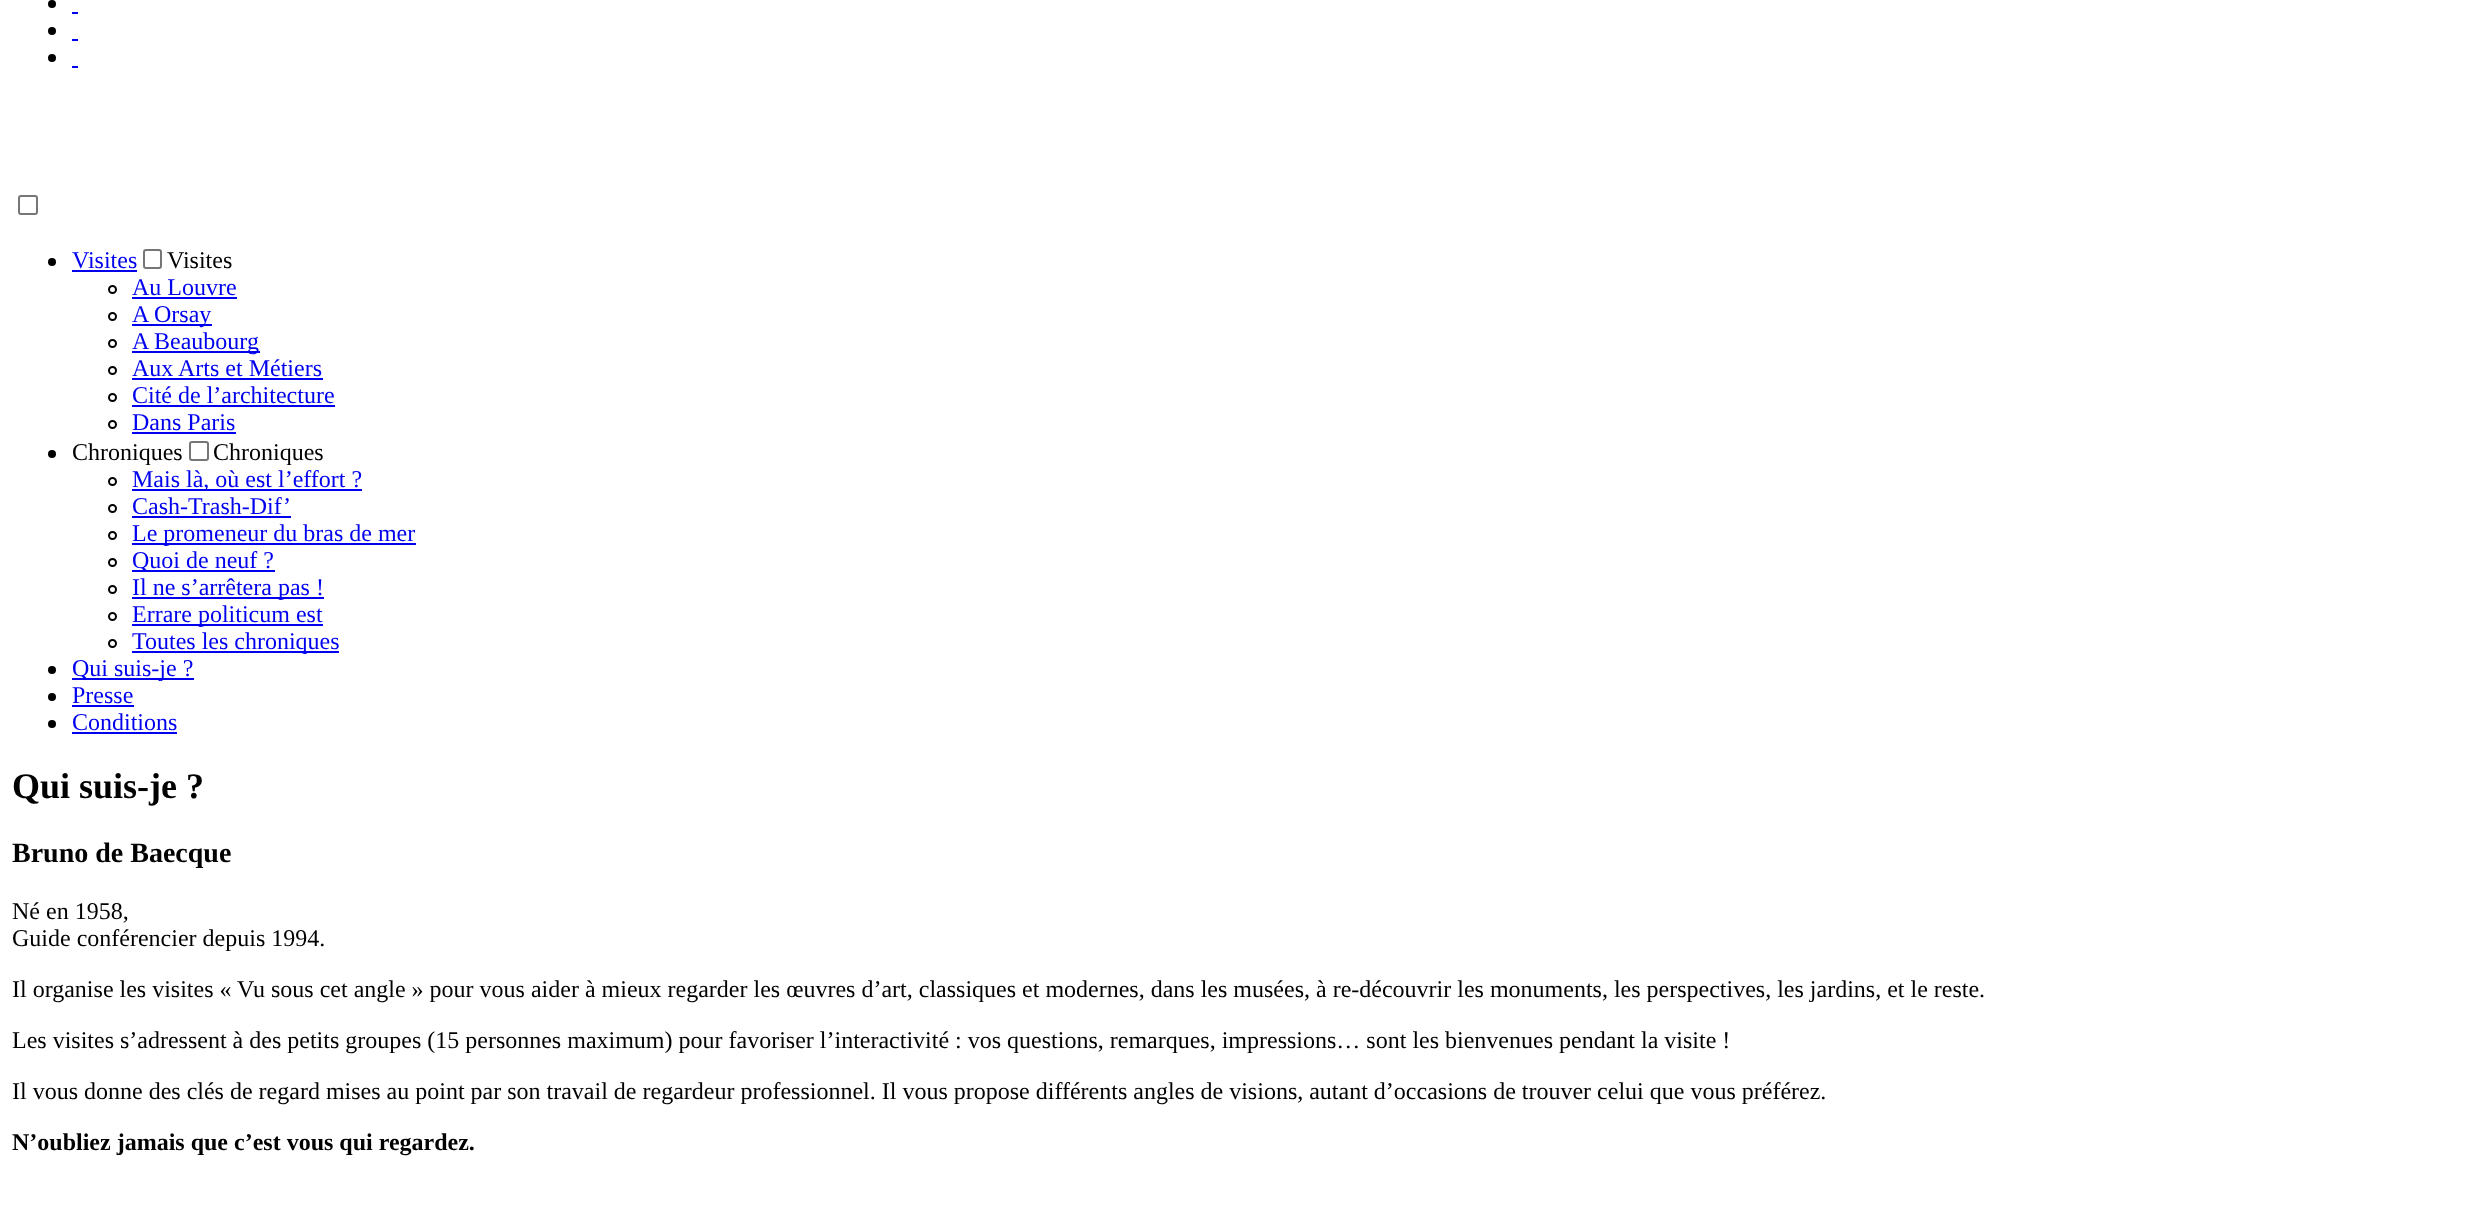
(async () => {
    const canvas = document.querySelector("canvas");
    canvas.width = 2490;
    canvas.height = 1230;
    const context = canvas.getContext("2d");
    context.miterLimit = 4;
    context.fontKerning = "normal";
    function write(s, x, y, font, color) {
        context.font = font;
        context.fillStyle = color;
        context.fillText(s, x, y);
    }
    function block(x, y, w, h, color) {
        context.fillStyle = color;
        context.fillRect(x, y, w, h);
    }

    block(0, 0, 2490, 1230, "rgb(255, 255, 255)");
    context.fillStyle = "rgb(0, 0, 0)";
    context.beginPath();
    context.arc(52, 4, 4, 0, Math.PI * 2);
    context.fill();
    block(72, 12, 6, 2, "rgb(0, 0, 238)");
    context.fillStyle = "rgb(0, 0, 0)";
    context.beginPath();
    context.arc(52, 31, 4, 0, Math.PI * 2);
    context.fill();
    block(72, 39, 6, 2, "rgb(0, 0, 238)");
    context.fillStyle = "rgb(0, 0, 0)";
    context.beginPath();
    context.arc(52, 58, 4, 0, Math.PI * 2);
    context.fill();
    block(72, 66, 6, 2, "rgb(0, 0, 238)");
    context.beginPath();
    context.roundRect(19, 196, 18, 18, 2);
    context.strokeStyle = "rgb(118, 118, 118)";
    context.lineWidth = 2;
    context.stroke();
    context.fillStyle = "rgb(0, 0, 0)";
    context.beginPath();
    context.arc(52, 262, 4, 0, Math.PI * 2);
    context.fill();
    write("Visites", 72, 268, "24px Liberation Serif", "rgb(0, 0, 238)");
    block(72, 270, 65, 2, "rgb(0, 0, 238)");
    context.beginPath();
    context.roundRect(144, 250, 17, 18, 2);
    context.stroke();
    write("Visites", 167, 268, "24px Liberation Serif", "rgb(0, 0, 0)");
    context.beginPath();
    context.arc(112.5, 289.5, 3.5, 0, Math.PI * 2);
    context.strokeStyle = "rgb(0, 0, 0)";
    context.stroke();
    write("Au Louvre", 132, 295, "24px Liberation Serif", "rgb(0, 0, 238)");
    block(132, 297, 105, 2, "rgb(0, 0, 238)");
    context.beginPath();
    context.arc(112.5, 316.5, 3.5, 0, Math.PI * 2);
    context.stroke();
    block(132, 324, 80, 2, "rgb(0, 0, 238)");
    write("A Orsay", 132, 322, "24px Liberation Serif", "rgb(0, 0, 238)");
    context.beginPath();
    context.arc(112.5, 343.5, 3.5, 0, Math.PI * 2);
    context.stroke();
    block(132, 351, 128, 2, "rgb(0, 0, 238)");
    write("A Beaubourg", 132, 349, "24px Liberation Serif", "rgb(0, 0, 238)");
    context.beginPath();
    context.arc(112.5, 370.5, 3.5, 0, Math.PI * 2);
    context.stroke();
    write("Aux Arts et Métiers", 132, 376, "24px Liberation Serif", "rgb(0, 0, 238)");
    block(132, 378, 191, 2, "rgb(0, 0, 238)");
    context.beginPath();
    context.arc(112.5, 397.5, 3.5, 0, Math.PI * 2);
    context.stroke();
    write("Cité de l’architecture", 132, 403, "24px Liberation Serif", "rgb(0, 0, 238)");
    block(132, 405, 203, 2, "rgb(0, 0, 238)");
    context.beginPath();
    context.arc(112.5, 424.5, 3.5, 0, Math.PI * 2);
    context.stroke();
    write("Dans Paris", 132, 430, "24px Liberation Serif", "rgb(0, 0, 238)");
    block(132, 432, 104, 2, "rgb(0, 0, 238)");
    context.fillStyle = "rgb(0, 0, 0)";
    context.beginPath();
    context.arc(52, 454, 4, 0, Math.PI * 2);
    context.fill();
    write("Chroniques", 72, 460, "24px Liberation Serif", "rgb(0, 0, 0)");
    context.beginPath();
    context.roundRect(190, 442, 18, 18, 2);
    context.strokeStyle = "rgb(118, 118, 118)";
    context.stroke();
    write("Chroniques", 213, 460, "24px Liberation Serif", "rgb(0, 0, 0)");
    context.beginPath();
    context.arc(112.5, 481.5, 3.5, 0, Math.PI * 2);
    context.strokeStyle = "rgb(0, 0, 0)";
    context.stroke();
    block(132, 489, 230, 2, "rgb(0, 0, 238)");
    write("Mais là, où est l’effort ?", 132, 487, "24px Liberation Serif", "rgb(0, 0, 238)");
    context.beginPath();
    context.arc(112.5, 508.5, 3.5, 0, Math.PI * 2);
    context.stroke();
    write("Cash-Trash-Dif’", 132, 514, "24px Liberation Serif", "rgb(0, 0, 238)");
    block(132, 516, 159, 2, "rgb(0, 0, 238)");
    context.beginPath();
    context.arc(112.5, 535.5, 3.5, 0, Math.PI * 2);
    context.stroke();
    block(132, 543, 284, 2, "rgb(0, 0, 238)");
    write("Le promeneur du bras de mer", 132, 541, "24px Liberation Serif", "rgb(0, 0, 238)");
    context.beginPath();
    context.arc(112.5, 562.5, 3.5, 0, Math.PI * 2);
    context.stroke();
    block(132, 570, 143, 2, "rgb(0, 0, 238)");
    write("Quoi de neuf ?", 132, 568, "24px Liberation Serif", "rgb(0, 0, 238)");
    context.beginPath();
    context.arc(112.5, 589.5, 3.5, 0, Math.PI * 2);
    context.stroke();
    block(132, 597, 192, 2, "rgb(0, 0, 238)");
    write("Il ne s’arrêtera pas !", 132, 595, "24px Liberation Serif", "rgb(0, 0, 238)");
    context.beginPath();
    context.arc(112.5, 616.5, 3.5, 0, Math.PI * 2);
    context.stroke();
    block(132, 624, 191, 2, "rgb(0, 0, 238)");
    write("Errare politicum est", 132, 622, "24px Liberation Serif", "rgb(0, 0, 238)");
    context.beginPath();
    context.arc(112.5, 643.5, 3.5, 0, Math.PI * 2);
    context.stroke();
    block(132, 651, 207, 2, "rgb(0, 0, 238)");
    write("Toutes les chroniques", 132, 649, "24px Liberation Serif", "rgb(0, 0, 238)");
    context.fillStyle = "rgb(0, 0, 0)";
    context.beginPath();
    context.arc(52, 670, 4, 0, Math.PI * 2);
    context.fill();
    block(72, 678, 122, 2, "rgb(0, 0, 238)");
    write("Qui suis-je ?", 72, 676, "24px Liberation Serif", "rgb(0, 0, 238)");
    context.fillStyle = "rgb(0, 0, 0)";
    context.beginPath();
    context.arc(52, 697, 4, 0, Math.PI * 2);
    context.fill();
    write("Presse", 72, 703, "24px Liberation Serif", "rgb(0, 0, 238)");
    block(72, 705, 62, 2, "rgb(0, 0, 238)");
    context.fillStyle = "rgb(0, 0, 0)";
    context.beginPath();
    context.arc(52, 724, 4, 0, Math.PI * 2);
    context.fill();
    write("Conditions", 72, 730, "24px Liberation Serif", "rgb(0, 0, 238)");
    block(72, 732, 105, 2, "rgb(0, 0, 238)");
    write("Qui suis-je ?", 12, 798, "bold 36px Liberation Serif", "rgb(0, 0, 0)");
    write("Bruno de Baecque", 12, 862, "bold 28px Liberation Serif", "rgb(0, 0, 0)");
    write("Né en 1958,", 12, 919, "24px Liberation Serif", "rgb(0, 0, 0)");
    write("Guide conférencier depuis 1994.", 12, 946, "24px Liberation Serif", "rgb(0, 0, 0)");
    write("Il organise les visites « Vu sous cet angle » pour vous aider à mieux regarder les œuvres d’art, classiques et modernes, dans les musées, à re-découvrir les monuments, les perspectives, les jardins, et le reste.", 12, 997, "24px Liberation Serif", "rgb(0, 0, 0)");
    write("Les visites s’adressent à des petits groupes (15 personnes maximum) pour favoriser l’interactivité : vos questions, remarques, impressions… sont les bienvenues pendant la visite !", 12, 1048, "24px Liberation Serif", "rgb(0, 0, 0)");
    write("Il vous donne des clés de regard mises au point par son travail de regardeur professionnel. Il vous propose différents angles de visions, autant d’occasions de trouver celui que vous préférez.", 12, 1099, "24px Liberation Serif", "rgb(0, 0, 0)");
    write("N’oubliez jamais que c’est vous qui regardez.", 12, 1150, "bold 24px Liberation Serif", "rgb(0, 0, 0)");
})();
